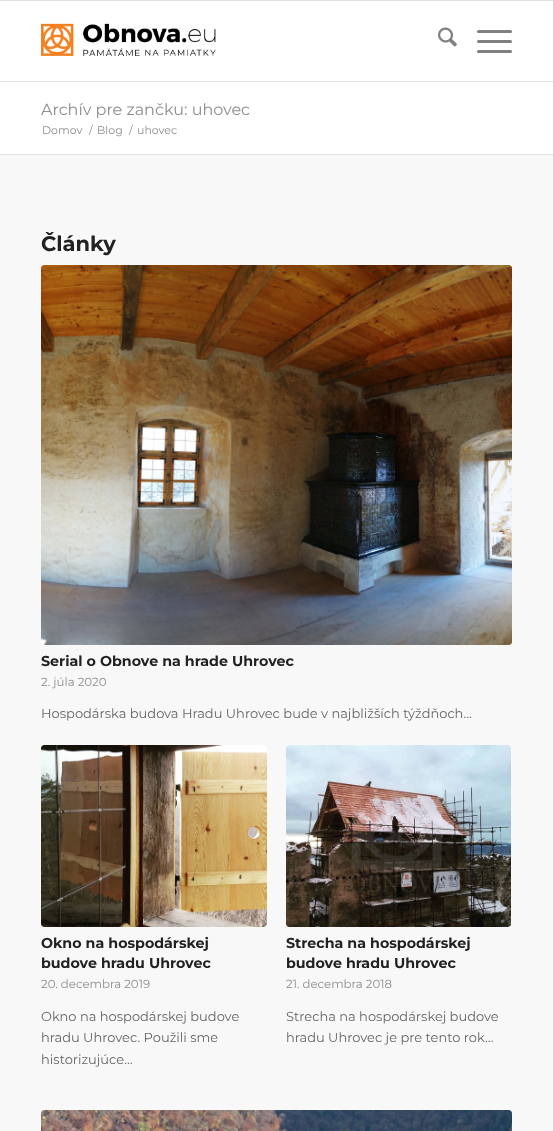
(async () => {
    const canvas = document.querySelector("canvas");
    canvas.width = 553;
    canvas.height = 1131;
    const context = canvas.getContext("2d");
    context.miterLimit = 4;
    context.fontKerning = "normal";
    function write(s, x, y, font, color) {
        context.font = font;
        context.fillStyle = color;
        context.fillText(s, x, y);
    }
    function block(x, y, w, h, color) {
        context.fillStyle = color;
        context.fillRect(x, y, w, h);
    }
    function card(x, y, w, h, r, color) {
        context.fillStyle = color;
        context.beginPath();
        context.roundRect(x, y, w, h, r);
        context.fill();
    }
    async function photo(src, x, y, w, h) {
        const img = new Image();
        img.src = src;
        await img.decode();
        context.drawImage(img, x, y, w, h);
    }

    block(0, 0, 553, 1131, "rgb(255, 255, 255)");
    block(0, 0, 553, 1, "rgb(225, 225, 225)");
    block(0, 81, 553, 1, "rgb(225, 225, 225)");
    await photo("media/1.png", 41, 23, 175, 33);
    await photo("media/2.png", 438, 27, 19, 20);
    card(477, 40, 35, 3, 1.5, "rgb(128, 128, 128)");
    card(477, 30, 35, 3, 1.5, "rgb(128, 128, 128)");
    card(477, 50, 35, 3, 1.5, "rgb(128, 128, 128)");
    write("Archív pre zančku: uhovec", 41, 115, "16px Montserrat", "rgb(141, 141, 141)");
    write("Domov", 42, 134, "11px Montserrat", "rgb(141, 141, 141)");
    write("/", 89, 134, "11px Montserrat", "rgb(141, 141, 141)");
    write("Blog", 97, 134, "11px Montserrat", "rgb(141, 141, 141)");
    write("/", 129, 134, "11px Montserrat", "rgb(141, 141, 141)");
    write("uhovec", 137, 134, "11px Montserrat", "rgb(141, 141, 141)");
    block(0, 155, 553, 976, "rgb(248, 248, 248)");
    block(0, 154, 553, 1, "rgb(225, 225, 225)");
    write("Články", 41, 251, "bold 21px Montserrat", "rgb(34, 34, 34)");
    card(41, 265, 471, 380, 3, "rgb(255, 255, 255)");
    await photo("media/3.png", 41, 265, 471, 380);
    write("Serial o Obnove na hrade Uhrovec", 41, 666, "bold 14.25px Montserrat", "rgb(34, 34, 34)");
    write("2. júla 2020", 41, 686, "11.75px Montserrat", "rgb(141, 141, 141)");
    write("Hospodárska budova Hradu Uhrovec bude v najbližších týždňoch…", 41, 718, "13px Montserrat", "rgb(102, 102, 102)");
    card(41, 745, 226, 182, 3, "rgb(255, 255, 255)");
    await photo("media/4.png", 41, 745, 226, 182);
    write("Okno na hospodárskej", 41, 948, "bold 14.25px Montserrat", "rgb(34, 34, 34)");
    write("budove hradu Uhrovec", 41, 968, "bold 14.25px Montserrat", "rgb(34, 34, 34)");
    write("20. decembra 2019", 41, 988, "11.75px Montserrat", "rgb(141, 141, 141)");
    write("Okno na hospodárskej budove", 41, 1021, "13px Montserrat", "rgb(102, 102, 102)");
    write("hradu Uhrovec. Použili sme", 41, 1042, "13px Montserrat", "rgb(102, 102, 102)");
    write("historizujúce…", 41, 1064, "13px Montserrat", "rgb(102, 102, 102)");
    card(286, 745, 225, 182, 3, "rgb(255, 255, 255)");
    await photo("media/5.png", 286, 745, 225, 182);
    write("Strecha na hospodárskej", 286, 948, "bold 14.25px Montserrat", "rgb(34, 34, 34)");
    write("budove hradu Uhrovec", 286, 968, "bold 14.25px Montserrat", "rgb(34, 34, 34)");
    write("21. decembra 2018", 286, 988, "11.75px Montserrat", "rgb(141, 141, 141)");
    write("Strecha na hospodárskej budove", 286, 1021, "13px Montserrat", "rgb(102, 102, 102)");
    write("hradu Uhrovec je pre tento rok…", 286, 1042, "13px Montserrat", "rgb(102, 102, 102)");
    card(41, 1110, 471, 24, 3, "rgb(255, 255, 255)");
    await photo("media/6.png", 41, 1110, 471, 21);
})();
